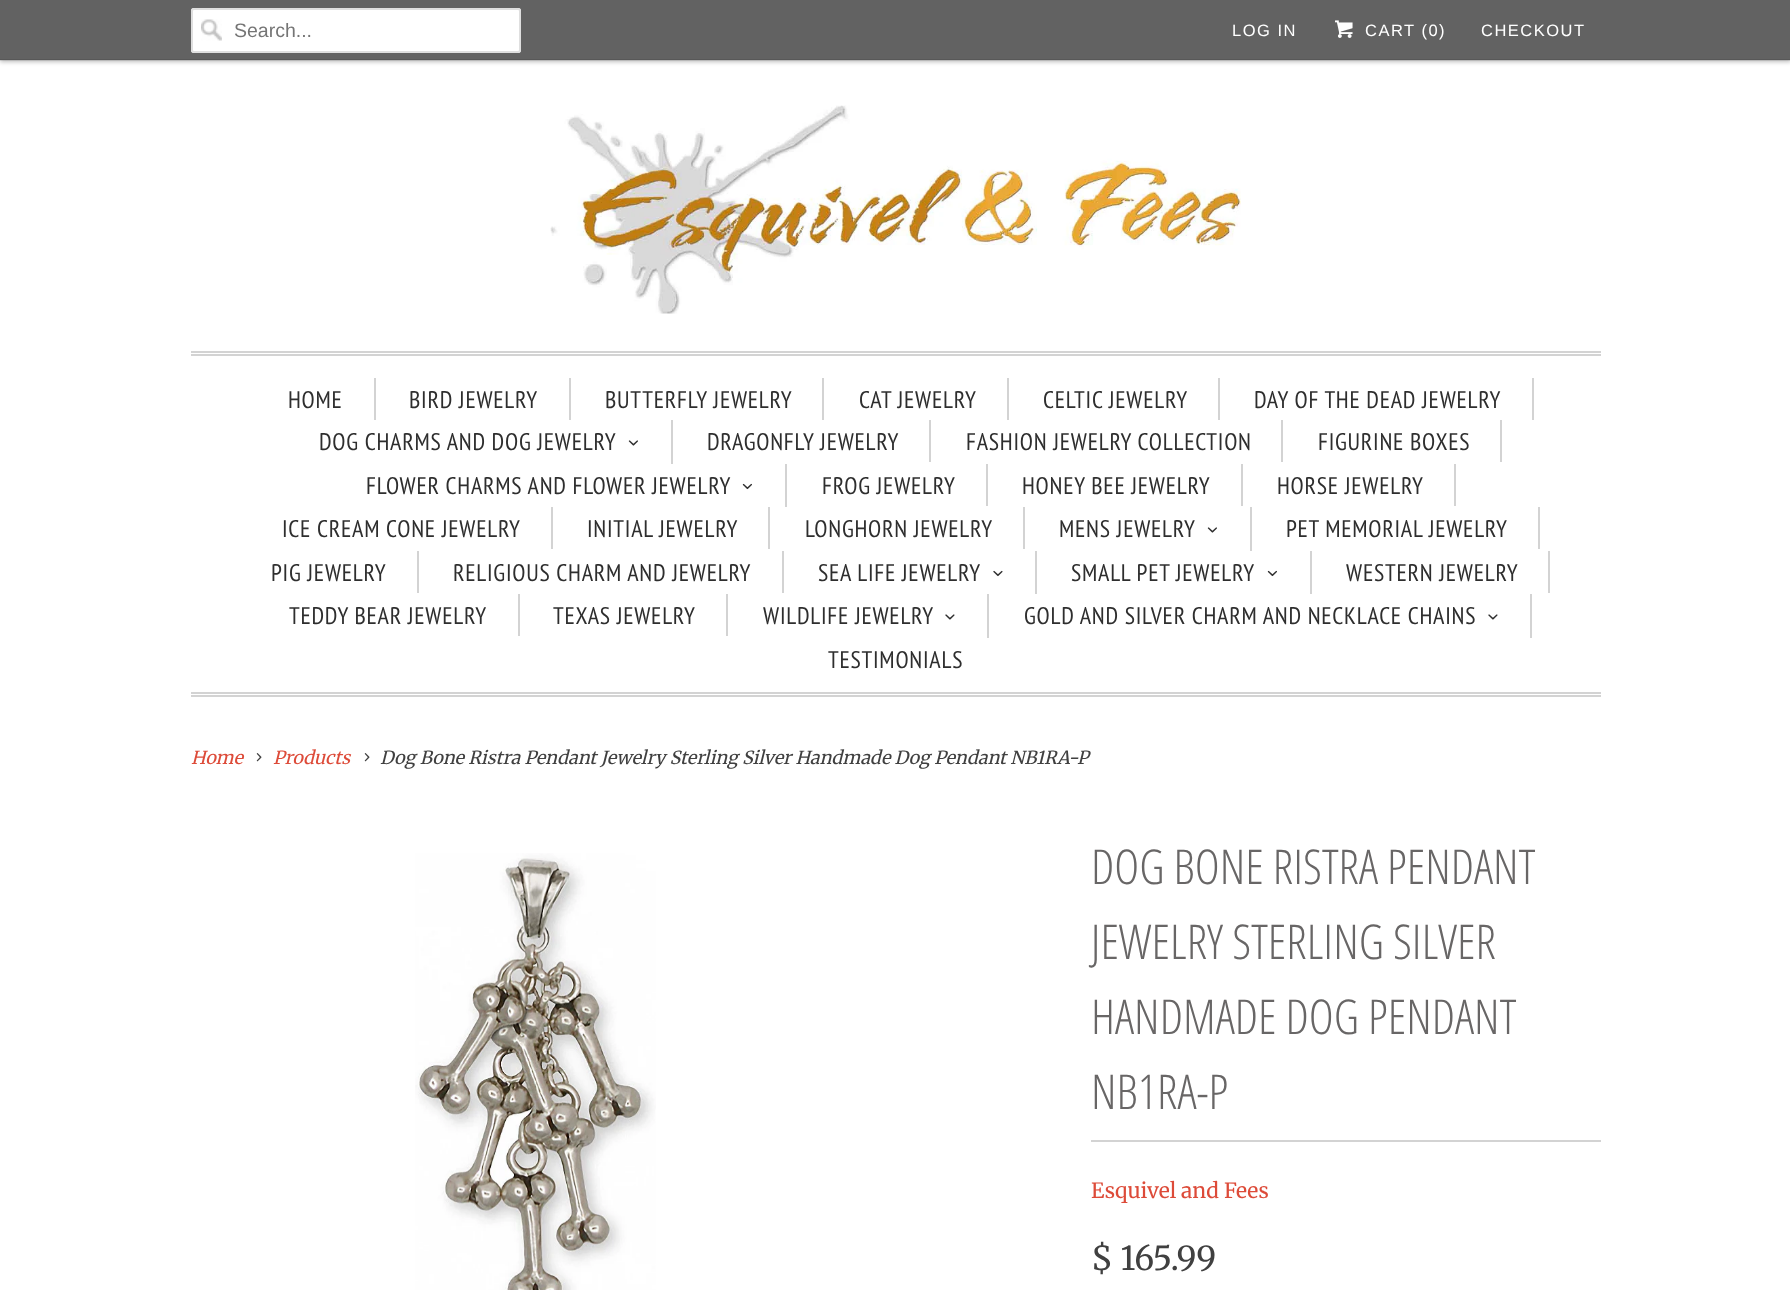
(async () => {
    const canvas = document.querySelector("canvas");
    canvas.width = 1790;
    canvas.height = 1290;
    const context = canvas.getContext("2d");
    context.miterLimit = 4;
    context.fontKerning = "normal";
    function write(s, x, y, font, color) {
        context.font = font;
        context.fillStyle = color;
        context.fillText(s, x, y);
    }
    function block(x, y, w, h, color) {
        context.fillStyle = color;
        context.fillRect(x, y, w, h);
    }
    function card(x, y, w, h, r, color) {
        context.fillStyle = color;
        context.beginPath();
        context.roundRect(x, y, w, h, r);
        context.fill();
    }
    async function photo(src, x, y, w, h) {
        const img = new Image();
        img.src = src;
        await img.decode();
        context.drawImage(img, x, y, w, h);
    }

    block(0, 0, 1790, 1290, "rgb(255, 255, 255)");
    context.fillStyle = "rgba(0, 0, 0, 0.25)";
    context.filter = "blur(2px)";
    context.beginPath();
    context.rect(0, 2, 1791, 60);
    context.fill();
    context.filter = "none";
    block(0, 0, 1790, 60, "rgb(98, 98, 98)");
    block(0, 59, 1790, 2, "rgba(0, 0, 0, 0.1)");
    card(191, 8, 330, 45, 3, "rgb(255, 255, 255)");
    await photo("media/1.png", 201, 19, 21, 22);
    context.beginPath();
    context.roundRect(192, 9, 328, 43, 2);
    context.strokeStyle = "rgb(223, 223, 223)";
    context.lineWidth = 2;
    context.stroke();
    write("Search...", 234, 37, "19.5px Liberation Sans", "rgb(117, 117, 117)");
    context.letterSpacing = "1.5px";
    write("LOG IN", 1232, 36, "16.5px Liberation Sans", "rgb(255, 255, 255)");
    await photo("media/2.png", 1335, 20, 18, 18);
    write("CART (0)", 1365, 36, "16.5px Liberation Sans", "rgb(255, 255, 255)");
    write("CHECKOUT", 1481, 36, "16.5px Liberation Sans", "rgb(255, 255, 255)");
    await photo("media/3.png", 550, 105, 691, 209);
    block(191, 351, 1410, 2, "rgb(211, 211, 211)");
    block(191, 354, 1410, 2, "rgb(211, 211, 211)");
    block(191, 692, 1410, 2, "rgb(211, 211, 211)");
    block(191, 695, 1410, 2, "rgb(211, 211, 211)");
    block(374, 378, 2, 42, "rgb(211, 211, 211)");
    context.letterSpacing = "0.75px";
    write("HOME", 288, 408, "24px PT Sans Narrow", "rgb(46, 46, 46)");
    block(569, 378, 2, 42, "rgb(211, 211, 211)");
    write("BIRD JEWELRY", 409, 408, "24px PT Sans Narrow", "rgb(46, 46, 46)");
    block(822, 378, 2, 42, "rgb(211, 211, 211)");
    write("BUTTERFLY JEWELRY", 605, 408, "24px PT Sans Narrow", "rgb(46, 46, 46)");
    block(1007, 378, 2, 42, "rgb(211, 211, 211)");
    write("CAT JEWELRY", 859, 408, "24px PT Sans Narrow", "rgb(46, 46, 46)");
    block(1218, 378, 2, 42, "rgb(211, 211, 211)");
    write("CELTIC JEWELRY", 1043, 408, "24px PT Sans Narrow", "rgb(46, 46, 46)");
    block(1532, 378, 2, 42, "rgb(211, 211, 211)");
    write("DAY OF THE DEAD JEWELRY", 1254, 408, "24px PT Sans Narrow", "rgb(46, 46, 46)");
    block(671, 420, 2, 44, "rgb(211, 211, 211)");
    write("DOG CHARMS AND DOG JEWELRY", 319, 450, "24px PT Sans Narrow", "rgb(46, 46, 46)");
    await photo("media/4.png", 628, 440, 10, 6);
    block(929, 420, 2, 42, "rgb(211, 211, 211)");
    write("DRAGONFLY JEWELRY", 707, 450, "24px PT Sans Narrow", "rgb(46, 46, 46)");
    block(1281, 420, 2, 42, "rgb(211, 211, 211)");
    write("FASHION JEWELRY COLLECTION", 966, 450, "24px PT Sans Narrow", "rgb(46, 46, 46)");
    block(1500, 420, 2, 42, "rgb(211, 211, 211)");
    write("FIGURINE BOXES", 1318, 450, "24px PT Sans Narrow", "rgb(46, 46, 46)");
    block(785, 464, 2, 43, "rgb(211, 211, 211)");
    write("FLOWER CHARMS AND FLOWER JEWELRY", 366, 494, "24px PT Sans Narrow", "rgb(46, 46, 46)");
    await photo("media/5.png", 742, 483, 10, 7);
    block(986, 464, 2, 42, "rgb(211, 211, 211)");
    write("FROG JEWELRY", 822, 494, "24px PT Sans Narrow", "rgb(46, 46, 46)");
    block(1241, 464, 2, 42, "rgb(211, 211, 211)");
    write("HONEY BEE JEWELRY", 1022, 494, "24px PT Sans Narrow", "rgb(46, 46, 46)");
    block(1454, 464, 2, 42, "rgb(211, 211, 211)");
    write("HORSE JEWELRY", 1277, 494, "24px PT Sans Narrow", "rgb(46, 46, 46)");
    block(551, 507, 2, 42, "rgb(211, 211, 211)");
    write("ICE CREAM CONE JEWELRY", 282, 537, "24px PT Sans Narrow", "rgb(46, 46, 46)");
    block(768, 507, 2, 42, "rgb(211, 211, 211)");
    write("INITIAL JEWELRY", 587, 537, "24px PT Sans Narrow", "rgb(46, 46, 46)");
    block(1023, 507, 2, 42, "rgb(211, 211, 211)");
    write("LONGHORN JEWELRY", 805, 537, "24px PT Sans Narrow", "rgb(46, 46, 46)");
    block(1250, 507, 2, 44, "rgb(211, 211, 211)");
    write("MENS JEWELRY", 1059, 537, "24px PT Sans Narrow", "rgb(46, 46, 46)");
    await photo("media/4.png", 1207, 527, 10, 6);
    block(1538, 507, 2, 42, "rgb(211, 211, 211)");
    write("PET MEMORIAL JEWELRY", 1286, 537, "24px PT Sans Narrow", "rgb(46, 46, 46)");
    block(417, 551, 2, 42, "rgb(211, 211, 211)");
    write("PIG JEWELRY", 271, 581, "24px PT Sans Narrow", "rgb(46, 46, 46)");
    block(782, 551, 2, 42, "rgb(211, 211, 211)");
    write("RELIGIOUS CHARM AND JEWELRY", 453, 581, "24px PT Sans Narrow", "rgb(46, 46, 46)");
    block(1035, 551, 2, 43, "rgb(211, 211, 211)");
    write("SEA LIFE JEWELRY", 818, 581, "24px PT Sans Narrow", "rgb(46, 46, 46)");
    await photo("media/6.png", 993, 570, 10, 7);
    block(1310, 551, 2, 43, "rgb(211, 211, 211)");
    write("SMALL PET JEWELRY", 1071, 581, "24px PT Sans Narrow", "rgb(46, 46, 46)");
    await photo("media/5.png", 1267, 570, 10, 7);
    block(1548, 551, 2, 42, "rgb(211, 211, 211)");
    write("WESTERN JEWELRY", 1346, 581, "24px PT Sans Narrow", "rgb(46, 46, 46)");
    block(518, 594, 2, 42, "rgb(211, 211, 211)");
    write("TEDDY BEAR JEWELRY", 289, 624, "24px PT Sans Narrow", "rgb(46, 46, 46)");
    block(726, 594, 2, 42, "rgb(211, 211, 211)");
    write("TEXAS JEWELRY", 553, 624, "24px PT Sans Narrow", "rgb(46, 46, 46)");
    block(987, 594, 2, 44, "rgb(211, 211, 211)");
    write("WILDLIFE JEWELRY", 763, 624, "24px PT Sans Narrow", "rgb(46, 46, 46)");
    await photo("media/7.png", 945, 614, 10, 6);
    block(1530, 594, 2, 44, "rgb(211, 211, 211)");
    write("GOLD AND SILVER CHARM AND NECKLACE CHAINS", 1024, 624, "24px PT Sans Narrow", "rgb(46, 46, 46)");
    await photo("media/7.png", 1488, 614, 10, 6);
    write("TESTIMONIALS", 828, 668, "24px PT Sans Narrow", "rgb(46, 46, 46)");
    context.letterSpacing = "0px";
    write("Home", 191, 764, "italic 18px Merriweather", "rgb(221, 75, 57)");
    await photo("media/8.png", 256, 753, 6, 9);
    write("Products", 273, 764, "italic 18px Merriweather", "rgb(221, 75, 57)");
    await photo("media/8.png", 364, 753, 6, 9);
    write("Dog Bone Ristra Pendant Jewelry Sterling Silver Handmade Dog Pendant NB1RA-P", 380, 764, "italic 18px Merriweather", "rgb(64, 64, 64)");
    await photo("media/9.png", 415, 853, 241, 437);
    block(1091, 1140, 510, 2, "rgb(211, 211, 211)");
    write("DOG BONE RISTRA PENDANT", 1091, 884, "300 48px Open Sans Condensed", "rgb(104, 102, 102)");
    write("JEWELRY STERLING SILVER", 1091, 959, "300 48px Open Sans Condensed", "rgb(104, 102, 102)");
    write("HANDMADE DOG PENDANT", 1091, 1034, "300 48px Open Sans Condensed", "rgb(104, 102, 102)");
    write("NB1RA-P", 1091, 1109, "300 48px Open Sans Condensed", "rgb(104, 102, 102)");
    write("Esquivel and Fees", 1091, 1198, "21px Merriweather", "rgb(221, 75, 57)");
    write("$ 165.99", 1091, 1270, "33px Merriweather", "rgb(64, 64, 64)");
})();
